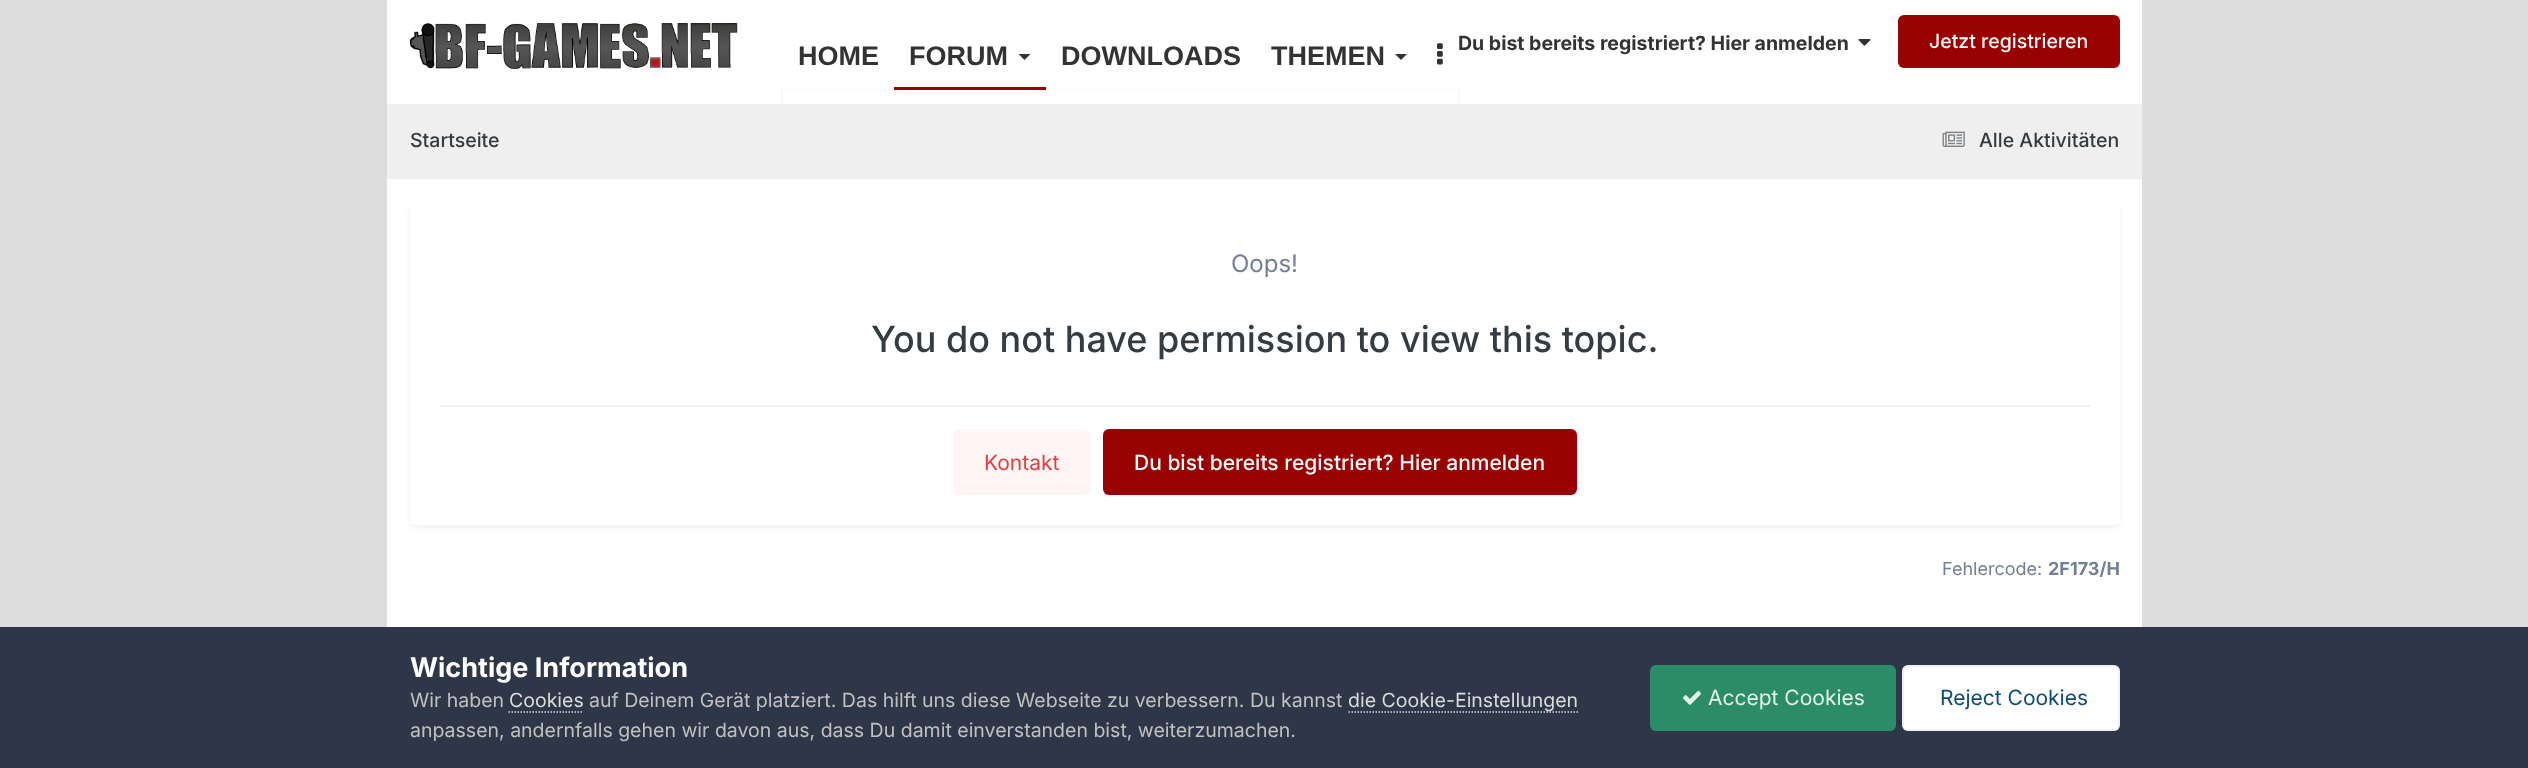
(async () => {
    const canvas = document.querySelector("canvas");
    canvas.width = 2528;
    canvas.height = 768;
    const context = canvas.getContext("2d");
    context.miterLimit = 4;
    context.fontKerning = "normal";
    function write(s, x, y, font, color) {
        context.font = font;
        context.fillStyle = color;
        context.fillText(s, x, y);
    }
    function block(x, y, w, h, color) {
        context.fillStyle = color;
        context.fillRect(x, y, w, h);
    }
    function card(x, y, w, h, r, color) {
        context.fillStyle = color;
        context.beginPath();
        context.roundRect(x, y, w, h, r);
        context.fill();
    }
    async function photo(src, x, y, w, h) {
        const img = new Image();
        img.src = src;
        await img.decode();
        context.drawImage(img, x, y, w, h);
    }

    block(0, 0, 2528, 768, "rgb(221, 221, 221)");
    block(387, 0, 1755, 104, "rgb(255, 255, 255)");
    await photo("media/1.png", 409, 23, 329, 47);
    write("HOME", 798, 65, "bold 27px Liberation Sans", "rgb(51, 51, 51)");
    context.fillStyle = "rgba(0, 0, 0, 0.1)";
    context.filter = "blur(1.5px)";
    context.beginPath();
    context.rect(783, 90, 675, 75);
    context.fill();
    context.filter = "none";
    block(783, 89, 675, 15, "rgb(255, 255, 255)");
    block(894, 87, 152, 3, "rgb(150, 0, 2)");
    write("FORUM", 909, 65, "bold 27px Liberation Sans", "rgb(51, 51, 51)");
    context.beginPath();
    context.moveTo(1018.5, 54);
    context.lineTo(1030.5, 54);
    context.lineTo(1024.5, 60);
    context.closePath();
    context.fill();
    write("DOWNLOADS", 1061, 65, "bold 27px Liberation Sans", "rgb(51, 51, 51)");
    write("THEMEN", 1271, 65, "bold 27px Liberation Sans", "rgb(51, 51, 51)");
    context.beginPath();
    context.moveTo(1395, 54);
    context.lineTo(1407, 54);
    context.lineTo(1401, 60);
    context.closePath();
    context.fill();
    await photo("media/2.png", 1437, 43, 6, 22);
    write("Du bist bereits registriert? Hier anmelden", 1458, 50, "bold 19.5px Inter", "rgb(51, 51, 51)");
    await photo("media/3.png", 1858, 39, 13, 7);
    card(1898, 15, 222, 53, 6, "rgb(153, 0, 0)");
    write("Jetzt registrieren", 1929, 48, "500 19.5px Inter", "rgb(255, 255, 255)");
    block(387, 179, 1755, 448, "rgb(255, 255, 255)");
    block(387, 104, 1755, 75, "rgb(239, 239, 239)");
    write("Startseite", 410, 147, "500 19.5px Inter", "rgb(53, 60, 65)");
    await photo("media/4.png", 1942, 131, 23, 16);
    write("Alle Aktivitäten", 1979, 147, "500 19.5px Inter", "rgb(53, 60, 65)");
    context.fillStyle = "rgba(45, 55, 72, 0.1)";
    context.filter = "blur(3px)";
    context.beginPath();
    context.roundRect(411, 206, 1707, 321, 5);
    context.fill();
    context.filter = "none";
    card(410, 201, 1710, 324, 6, "rgb(255, 255, 255)");
    write("Oops!", 1231, 272, "24px Inter", "rgb(113, 128, 150)");
    write("You do not have permission to view this topic.", 871, 352, "500 36px Inter", "rgb(53, 60, 65)");
    block(440, 405, 1650, 2, "rgb(239, 239, 240)");
    card(953, 429, 138, 66, 6, "rgb(255, 245, 245)");
    write("Kontakt", 984, 470, "21px Inter", "rgb(229, 62, 62)");
    card(1103, 429, 474, 66, 6, "rgb(153, 0, 0)");
    write("Du bist bereits registriert? Hier anmelden", 1134, 470, "500 21px Inter", "rgb(255, 255, 255)");
    write("Fehlercode:", 1942, 575, "18px Inter", "rgb(113, 128, 150)");
    write("2F173/H", 2048, 575, "bold 18px Inter", "rgb(113, 128, 150)");
    block(0, 627, 2528, 141, "rgb(45, 55, 72)");
    write("Wichtige Information", 410, 677, "bold 27px Inter", "rgb(255, 255, 255)");
    write("Wir haben", 410, 707, "19.5px Inter", "rgb(192, 192, 192)");
    write("Cookies", 509, 707, "19.5px Inter", "rgb(218, 218, 218)");
    context.beginPath();
    context.moveTo(508.5, 712);
    context.lineTo(583.5, 712);
    context.strokeStyle = "rgb(218, 218, 218)";
    context.lineWidth = 1.5;
    context.setLineDash([1.5, 1.5]);
    context.stroke();
    write("auf Deinem Gerät platziert. Das hilft uns diese Webseite zu verbessern. Du kannst", 589, 707, "19.5px Inter", "rgb(192, 192, 192)");
    context.beginPath();
    context.moveTo(1348.5, 712);
    context.lineTo(1578, 712);
    context.stroke();
    write("die Cookie-Einstellungen", 1348, 707, "19.5px Inter", "rgb(218, 218, 218)");
    write("anpassen, andernfalls gehen wir davon aus, dass Du damit einverstanden bist, weiterzumachen.", 410, 737, "19.5px Inter", "rgb(192, 192, 192)");
    card(1650, 665, 246, 66, 6, "rgb(44, 140, 105)");
    await photo("media/5.png", 1682, 690, 20, 15);
    write("Accept Cookies", 1708, 705, "21px Inter", "rgb(227, 243, 236)");
    card(1902, 665, 218, 66, 6, "rgb(255, 255, 255)");
    context.beginPath();
    context.roundRect(1903, 666, 216, 64, 5);
    context.strokeStyle = "rgba(14, 76, 121, 0.07)";
    context.lineWidth = 2;
    context.setLineDash([]);
    context.stroke();
    write("Reject Cookies", 1940, 705, "21px Inter", "rgb(14, 76, 121)");
})();
